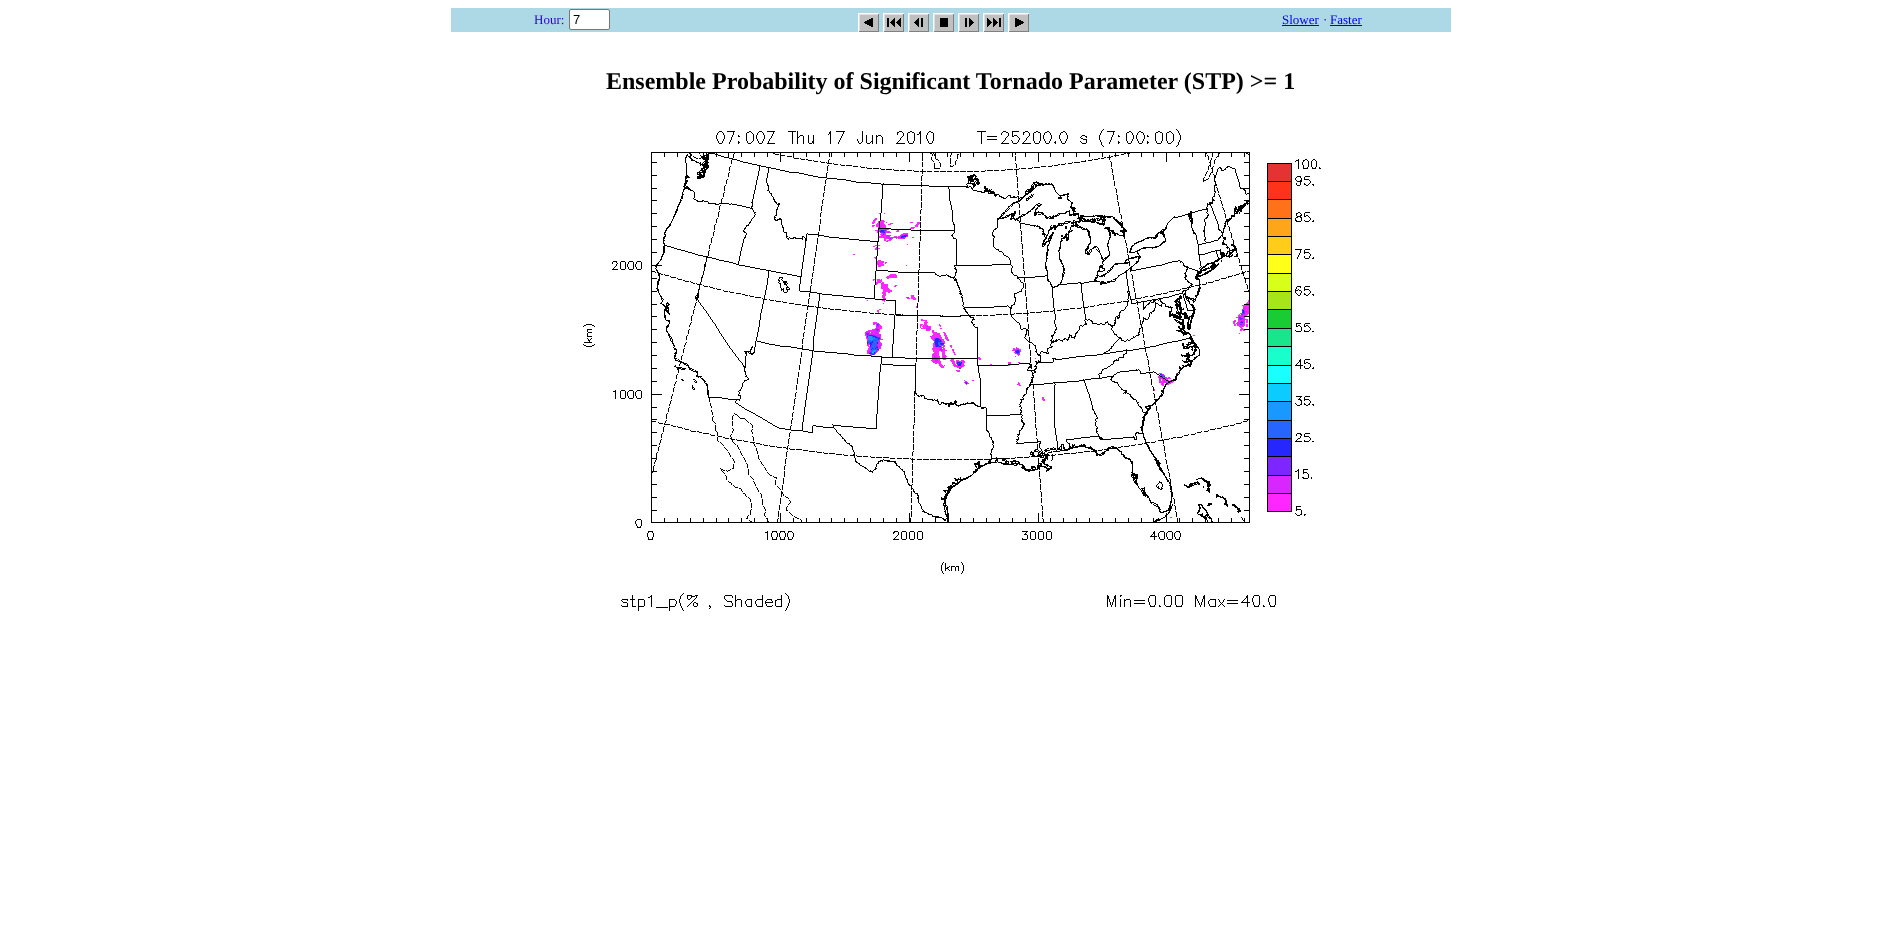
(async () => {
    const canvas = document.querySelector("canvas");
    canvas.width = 1901;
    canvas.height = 927;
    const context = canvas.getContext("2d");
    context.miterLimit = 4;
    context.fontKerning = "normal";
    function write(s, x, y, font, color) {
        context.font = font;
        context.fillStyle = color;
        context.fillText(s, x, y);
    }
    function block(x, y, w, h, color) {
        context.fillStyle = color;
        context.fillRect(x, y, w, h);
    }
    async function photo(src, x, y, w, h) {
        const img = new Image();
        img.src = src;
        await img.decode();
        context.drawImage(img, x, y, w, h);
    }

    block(0, 0, 1901, 927, "rgb(255, 255, 255)");
    block(451, 8, 1000, 24, "rgb(173, 216, 230)");
    write("Hour:", 534, 24, "13px Liberation Serif", "rgb(51, 0, 204)");
    context.fillStyle = "rgb(255, 255, 255)";
    context.beginPath();
    context.roundRect(569.5, 9.5, 40, 20, 1.5);
    context.fill();
    context.strokeStyle = "rgb(118, 118, 118)";
    context.stroke();
    write("7", 573, 24, "13px Liberation Sans", "rgb(0, 0, 0)");
    await photo("media/1.png", 858, 13, 21, 19);
    await photo("media/2.png", 883, 13, 21, 19);
    await photo("media/3.png", 908, 13, 21, 19);
    await photo("media/4.png", 933, 13, 21, 19);
    await photo("media/5.png", 958, 13, 21, 19);
    await photo("media/6.png", 983, 13, 21, 19);
    await photo("media/7.png", 1008, 13, 21, 19);
    write("Slower", 1282, 24, "13px Liberation Serif", "rgb(0, 0, 238)");
    block(1282, 25, 37, 1, "rgb(0, 0, 238)");
    write("·", 1323, 24, "13px Liberation Serif", "rgb(51, 0, 204)");
    write("Faster", 1330, 24, "13px Liberation Serif", "rgb(0, 0, 238)");
    block(1330, 25, 32, 1, "rgb(0, 0, 238)");
    write("Ensemble Probability of Significant Tornado Parameter (STP) >= 1", 606, 89, "bold 24px Liberation Serif", "rgb(0, 0, 0)");
    await photo("media/8.png", 583, 129, 738, 482);
})();
